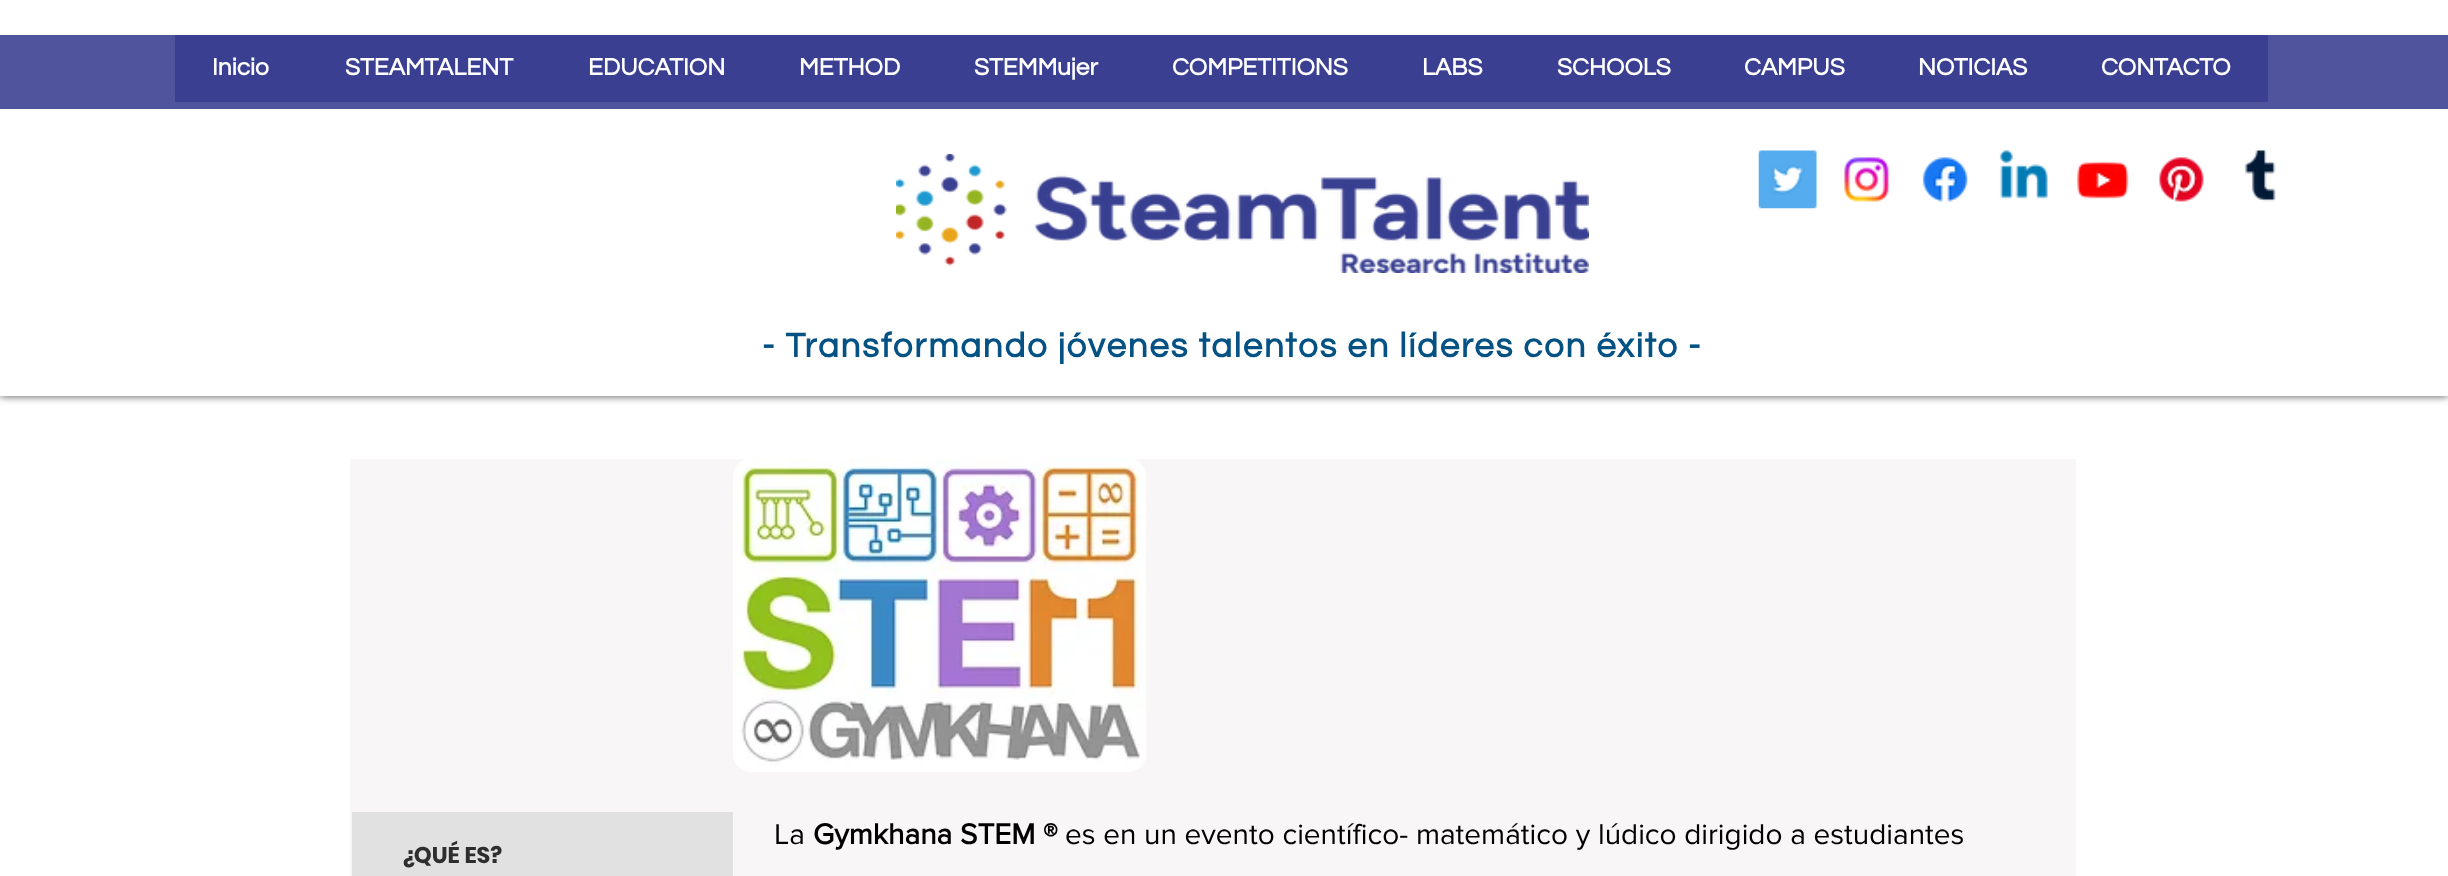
(async () => {
    const canvas = document.querySelector("canvas");
    canvas.width = 2448;
    canvas.height = 876;
    const context = canvas.getContext("2d");
    context.miterLimit = 4;
    context.fontKerning = "normal";
    function write(s, x, y, font, color) {
        context.font = font;
        context.fillStyle = color;
        context.fillText(s, x, y);
    }
    function block(x, y, w, h, color) {
        context.fillStyle = color;
        context.fillRect(x, y, w, h);
    }
    function card(x, y, w, h, r, color) {
        context.fillStyle = color;
        context.beginPath();
        context.roundRect(x, y, w, h, r);
        context.fill();
    }
    async function photo(src, x, y, w, h) {
        const img = new Image();
        img.src = src;
        await img.decode();
        context.drawImage(img, x, y, w, h);
    }

    block(0, 0, 2448, 876, "rgb(255, 255, 255)");
    context.fillStyle = "rgba(0, 0, 0, 0.7)";
    context.filter = "blur(4.5px)";
    context.beginPath();
    context.rect(0, 0, 2448, 396);
    context.fill();
    context.filter = "none";
    block(0, 0, 2448, 396, "rgb(255, 255, 255)");
    block(0, 35, 2448, 74, "rgb(80, 84, 157)");
    block(175, 35, 2093, 67, "rgb(58, 63, 145)");
    write("Inicio", 212, 75, "bold 24.5px Questrial", "rgb(255, 255, 255)");
    write("STEAMTALENT", 345, 75, "bold 24.5px Questrial", "rgb(255, 255, 255)");
    write("EDUCATION", 588, 75, "bold 24.5px Questrial", "rgb(255, 255, 255)");
    write("METHOD", 799, 75, "bold 24.5px Questrial", "rgb(255, 255, 255)");
    write("STEMMujer", 974, 75, "bold 24.5px Questrial", "rgb(255, 255, 255)");
    write("COMPETITIONS", 1172, 75, "bold 24.5px Questrial", "rgb(255, 255, 255)");
    write("LABS", 1422, 75, "bold 24.5px Questrial", "rgb(255, 255, 255)");
    write("SCHOOLS", 1557, 75, "bold 24.5px Questrial", "rgb(255, 255, 255)");
    write("CAMPUS", 1744, 75, "bold 24.5px Questrial", "rgb(255, 255, 255)");
    write("NOTICIAS", 1918, 75, "bold 24.5px Questrial", "rgb(255, 255, 255)");
    write("CONTACTO", 2101, 75, "bold 24.5px Questrial", "rgb(255, 255, 255)");
    await photo("media/1.png", 896, 154, 693, 119);
    await photo("media/2.png", 1758, 150, 59, 59);
    await photo("media/3.png", 1844, 157, 45, 45);
    await photo("media/4.png", 1922, 157, 46, 45);
    await photo("media/5.png", 1999, 150, 49, 49);
    await photo("media/6.png", 2076, 161, 53, 38);
    await photo("media/7.png", 2159, 157, 45, 45);
    await photo("media/8.png", 2244, 150, 32, 52);
    context.letterSpacing = "1.75px";
    write("- Transformando jóvenes talentos en líderes con éxito -", 762, 357, "bold 35px Questrial", "rgb(4, 81, 132)");
    block(350, 459, 1726, 417, "rgb(248, 246, 246)");
    card(733, 459, 413, 313, 18, "rgb(255, 255, 255)");
    await photo("media/9.png", 733, 459, 413, 307);
    context.letterSpacing = "0px";
    write("La", 774, 844, "29.75px 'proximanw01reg'", "rgb(0, 0, 0)");
    write("Gymkhana STEM ®", 813, 844, "bold 29.75px 'proximanw01reg'", "rgb(0, 0, 0)");
    write("es en un evento científico- matemático y lúdico dirigido a estudiantes", 1065, 844, "29.75px 'proximanw01reg'", "rgb(0, 0, 0)");
    block(352, 812, 381, 64, "rgb(226, 225, 225)");
    write("¿QUÉ ES?", 402, 863, "bold 22.75px Poppins", "rgb(47, 46, 46)");
})();
